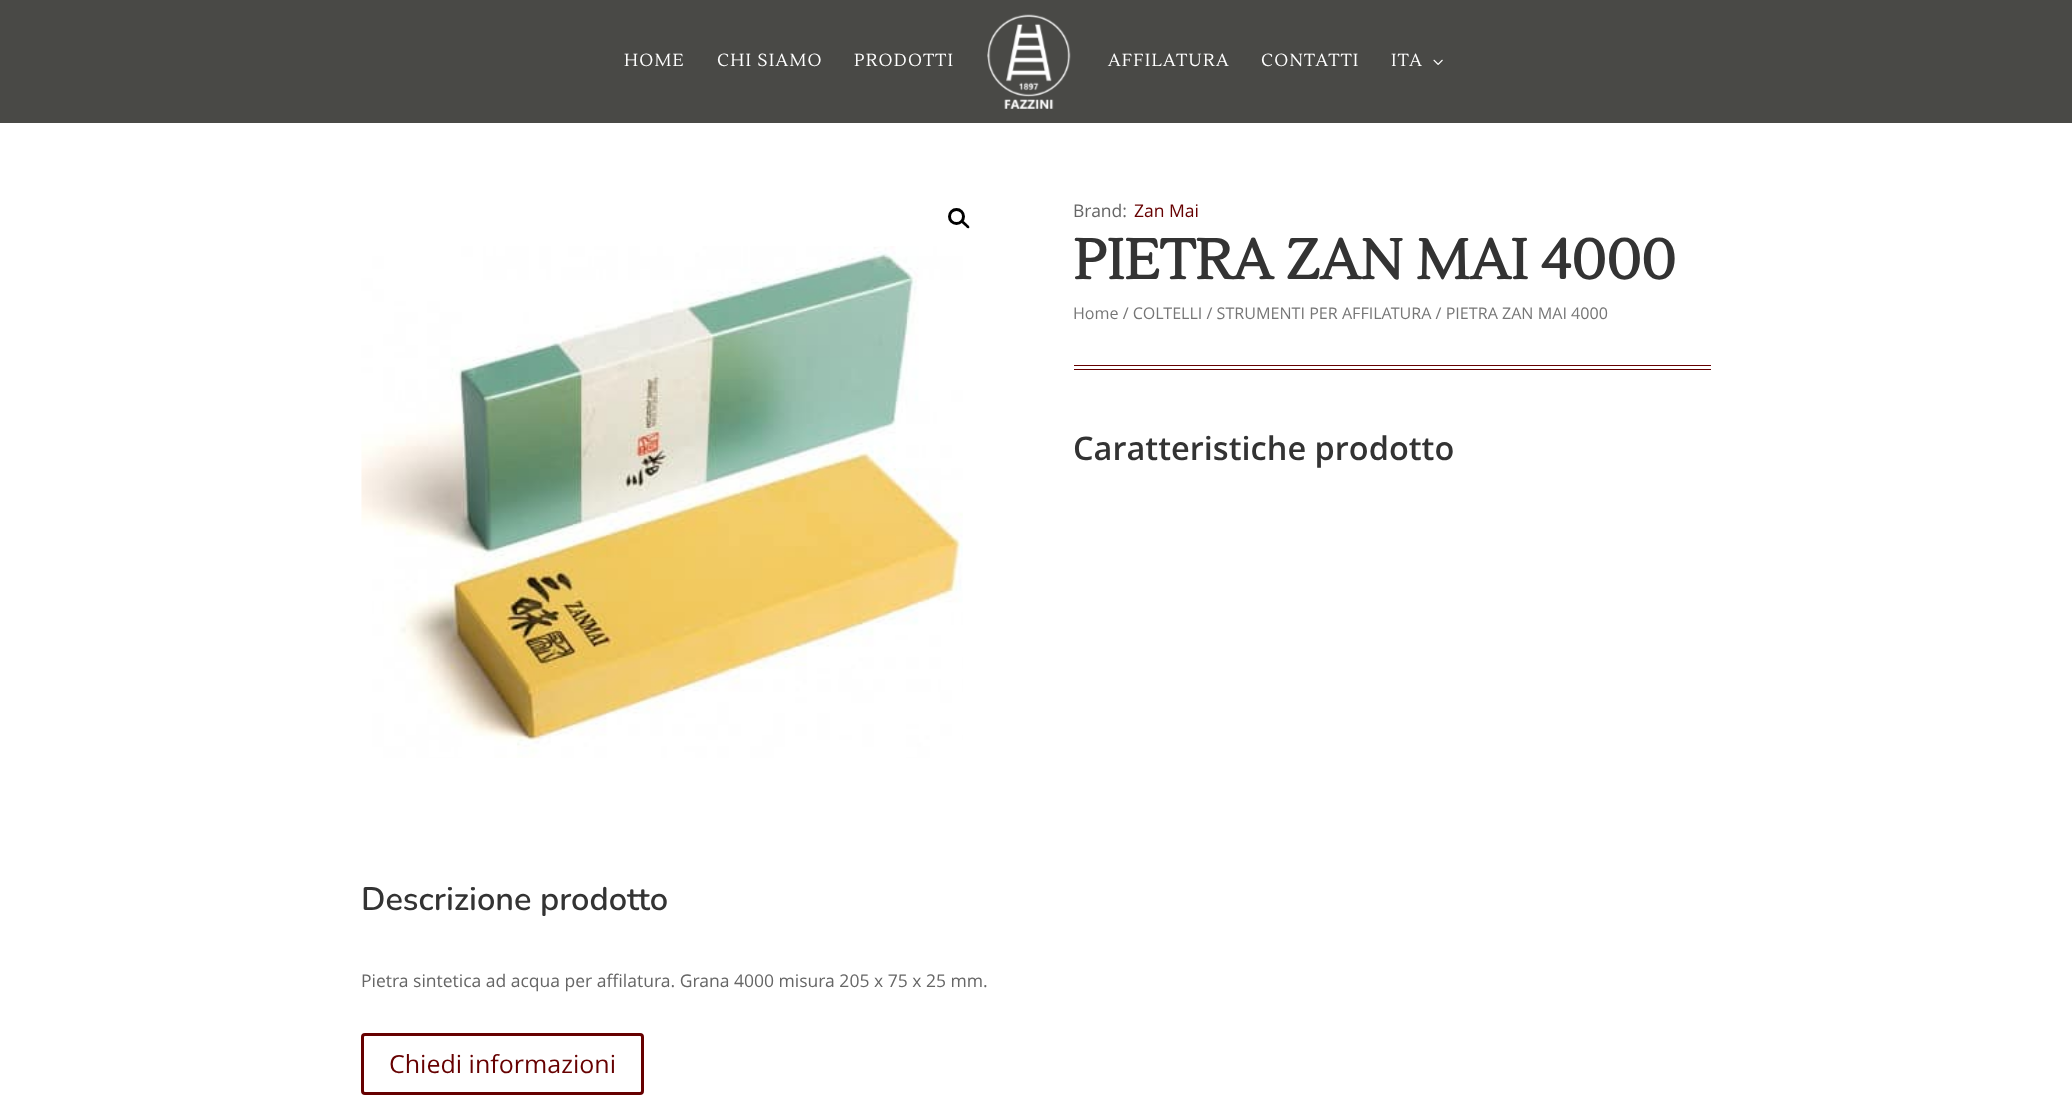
(async () => {
    const canvas = document.querySelector("canvas");
    canvas.width = 2072;
    canvas.height = 1102;
    const context = canvas.getContext("2d");
    context.miterLimit = 4;
    context.fontKerning = "normal";
    function write(s, x, y, font, color) {
        context.font = font;
        context.fillStyle = color;
        context.fillText(s, x, y);
    }
    function block(x, y, w, h, color) {
        context.fillStyle = color;
        context.fillRect(x, y, w, h);
    }
    async function photo(src, x, y, w, h) {
        const img = new Image();
        img.src = src;
        await img.decode();
        context.drawImage(img, x, y, w, h);
    }

    block(0, 0, 2072, 1102, "rgb(255, 255, 255)");
    block(0, 0, 2072, 123, "rgb(73, 73, 70)");
    context.letterSpacing = "1.25px";
    write("HOME", 624, 66, "17.5px Lustria", "rgb(255, 255, 255)");
    write("CHI SIAMO", 717, 66, "17.5px Lustria", "rgb(255, 255, 255)");
    write("PRODOTTI", 854, 66, "17.5px Lustria", "rgb(255, 255, 255)");
    await photo("media/1.png", 987, 14, 84, 95);
    write("AFFILATURA", 1108, 66, "17.5px Lustria", "rgb(255, 255, 255)");
    write("CONTATTI", 1261, 66, "17.5px Lustria", "rgb(255, 255, 255)");
    write("ITA", 1391, 66, "17.5px Lustria", "rgb(255, 255, 255)");
    await photo("media/2.png", 1433, 59, 10, 6);
    context.beginPath();
    context.arc(956.5, 216.5, 7, 0, Math.PI * 2);
    context.strokeStyle = "rgb(0, 0, 0)";
    context.lineWidth = 3;
    context.stroke();
    context.fillStyle = "rgb(0, 0, 0)";
    context.beginPath();
    context.moveTo(962, 221);
    context.bezierCurveTo(963.5, 219.5, 965.5, 223, 966.5, 223.5);
    context.bezierCurveTo(967, 224.5, 970.5, 226.5, 969, 228);
    context.bezierCurveTo(967.5, 229.5, 965.5, 226, 964.5, 225.5);
    context.bezierCurveTo(963.5, 224.5, 960.5, 222.5, 962, 221);
    context.closePath();
    context.fill();
    await photo("media/3.png", 361, 246, 602, 512);
    context.letterSpacing = "0px";
    write("Brand:", 1073, 217, "17.5px Open Sans", "rgb(102, 102, 102)");
    write("Zan Mai", 1134, 217, "17.5px Open Sans", "rgb(102, 0, 0)");
    write("PIETRA ZAN MAI 4000", 1073, 279, "bold 56.25px Lustria", "rgb(51, 51, 51)");
    write("Home / COLTELLI / STRUMENTI PER AFFILATURA / PIETRA ZAN MAI 4000", 1073, 319, "16.1px Open Sans", "rgb(118, 118, 118)");
    block(1074, 365, 637, 1, "rgb(102, 0, 0)");
    block(1074, 369, 637, 1, "rgb(102, 0, 0)");
    write("Caratteristiche prodotto", 1073, 460, "600 32.5px Open Sans", "rgb(51, 51, 51)");
    write("Descrizione prodotto", 361, 910, "200 32.5px Nunito", "rgb(51, 51, 51)");
    write("Pietra sintetica ad acqua per affilatura. Grana 4000 misura 205 x 75 x 25 mm.", 361, 987, "17.5px Open Sans", "rgb(102, 102, 102)");
    context.beginPath();
    context.roundRect(362.5, 1034.5, 280, 59, 2.5);
    context.strokeStyle = "rgb(102, 0, 0)";
    context.stroke();
    write("Chiedi informazioni", 389, 1073, "25px Open Sans", "rgb(102, 0, 0)");
})();
